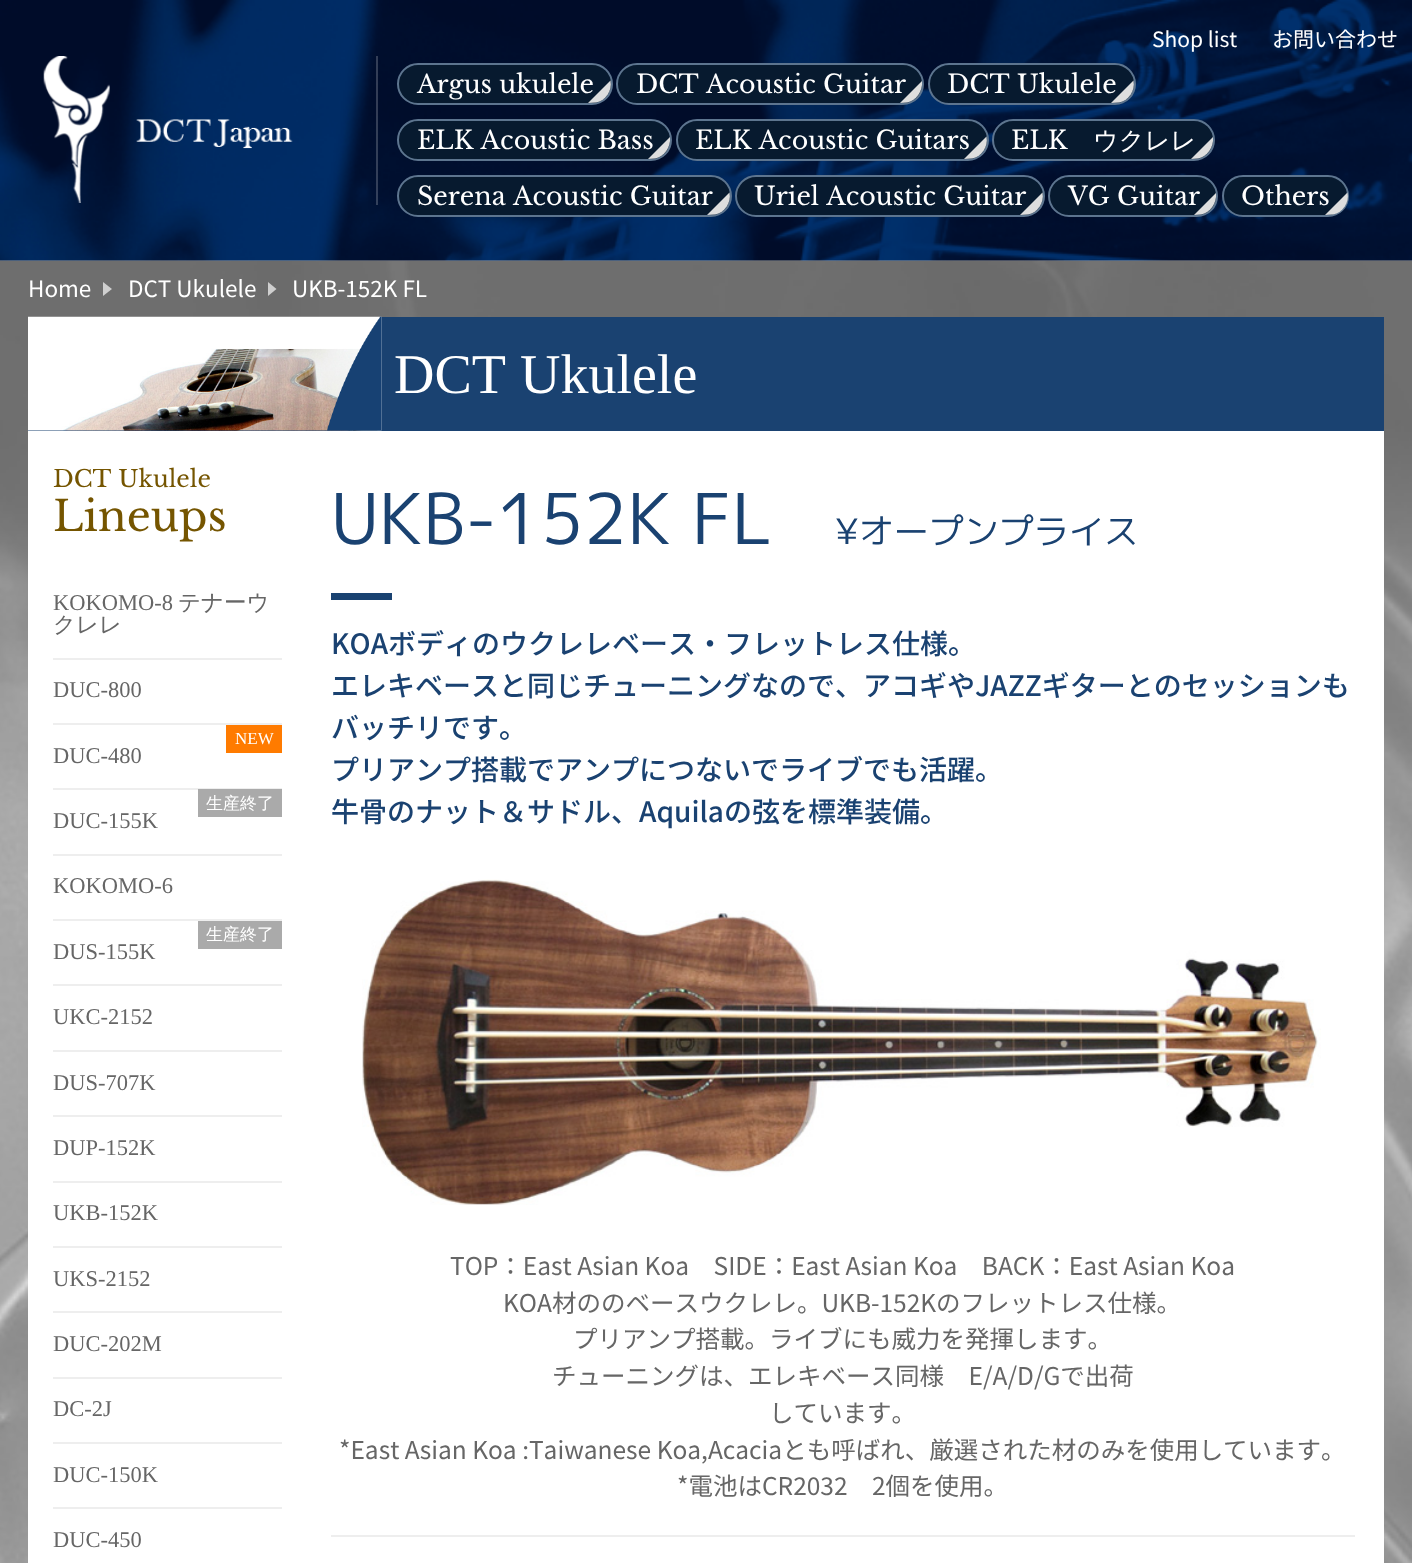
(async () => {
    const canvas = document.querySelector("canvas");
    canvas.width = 1412;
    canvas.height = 1563;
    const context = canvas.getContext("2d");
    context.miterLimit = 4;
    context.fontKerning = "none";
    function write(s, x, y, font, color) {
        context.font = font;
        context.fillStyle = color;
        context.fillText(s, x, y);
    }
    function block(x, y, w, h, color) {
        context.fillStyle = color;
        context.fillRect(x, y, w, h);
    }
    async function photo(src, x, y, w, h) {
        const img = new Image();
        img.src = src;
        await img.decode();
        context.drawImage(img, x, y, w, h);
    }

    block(0, 0, 1412, 1563, "rgb(255, 255, 255)");
    await photo("media/1.png", 0, 0, 1412, 261);
    write("Shop list", 1152, 47, "21px Noto Sans JP", "rgb(255, 255, 255)");
    write("お問い合わせ", 1272, 47, "21px Noto Sans JP", "rgb(255, 255, 255)");
    await photo("media/2.png", 43, 56, 250, 147);
    block(376, 56, 2, 149, "rgba(255, 255, 255, 0.2)");
    context.fillStyle = "rgb(7, 26, 47)";
    context.beginPath();
    context.roundRect(398, 64, 214, 40, 20);
    context.fill();
    context.strokeStyle = "rgb(93, 117, 143)";
    context.lineWidth = 2;
    context.stroke();
    write("Argus ukulele", 417, 93, "25.25px Libre Baskerville", "rgb(255, 255, 255)");
    context.fillStyle = "rgb(222, 222, 222)";
    context.beginPath();
    context.moveTo(610.5, 80.5);
    context.bezierCurveTo(612.5, 90.5, 606, 100.5, 596, 102.5);
    context.lineTo(588, 103);
    context.closePath();
    context.fill();
    context.fillStyle = "rgb(7, 26, 47)";
    context.beginPath();
    context.roundRect(617, 64, 306, 40, 20);
    context.fill();
    context.stroke();
    write("DCT Acoustic Guitar", 636, 93, "25.25px Libre Baskerville", "rgb(255, 255, 255)");
    context.fillStyle = "rgb(222, 222, 222)";
    context.beginPath();
    context.moveTo(922, 81);
    context.bezierCurveTo(923, 91, 916.5, 100.5, 907, 102.5);
    context.lineTo(900, 103);
    context.closePath();
    context.fill();
    context.fillStyle = "rgb(7, 26, 47)";
    context.beginPath();
    context.roundRect(929, 64, 206, 40, 20);
    context.fill();
    context.stroke();
    write("DCT Ukulele", 947, 93, "25.25px Libre Baskerville", "rgb(255, 255, 255)");
    context.fillStyle = "rgb(222, 222, 222)";
    context.beginPath();
    context.moveTo(1133.5, 80.5);
    context.bezierCurveTo(1135.5, 90.5, 1129, 100.5, 1119, 102.5);
    context.lineTo(1111, 103);
    context.closePath();
    context.fill();
    context.fillStyle = "rgb(7, 26, 47)";
    context.beginPath();
    context.roundRect(398, 120, 273, 40, 20);
    context.fill();
    context.stroke();
    write("ELK Acoustic Bass", 417, 149, "25.25px Libre Baskerville", "rgb(255, 255, 255)");
    context.fillStyle = "rgb(222, 222, 222)";
    context.beginPath();
    context.moveTo(670, 137);
    context.bezierCurveTo(671, 147, 664.5, 156.5, 655, 158.5);
    context.lineTo(648, 159);
    context.closePath();
    context.fill();
    context.fillStyle = "rgb(7, 26, 47)";
    context.beginPath();
    context.roundRect(677, 120, 311, 40, 20);
    context.fill();
    context.stroke();
    write("ELK Acoustic Guitars", 695, 149, "25.25px Libre Baskerville", "rgb(255, 255, 255)");
    context.fillStyle = "rgb(222, 222, 222)";
    context.beginPath();
    context.moveTo(986.5, 136.5);
    context.bezierCurveTo(988.5, 146.5, 982, 156.5, 972, 158.5);
    context.lineTo(964, 159);
    context.closePath();
    context.fill();
    context.fillStyle = "rgb(7, 26, 47)";
    context.beginPath();
    context.roundRect(993, 120, 221, 40, 20);
    context.fill();
    context.stroke();
    write("ELK", 1011, 149, "25.25px Libre Baskerville", "rgb(255, 255, 255)");
    write("ウクレレ", 1093, 149, "500 25.25px WenQuanYi Zen Hei", "rgb(255, 255, 255)");
    context.fillStyle = "rgb(222, 222, 222)";
    context.beginPath();
    context.moveTo(1213, 137);
    context.bezierCurveTo(1214, 147, 1207.5, 156.5, 1198, 158.5);
    context.lineTo(1191, 159);
    context.closePath();
    context.fill();
    context.fillStyle = "rgb(7, 26, 47)";
    context.beginPath();
    context.roundRect(398, 176, 333, 40, 20);
    context.fill();
    context.stroke();
    write("Serena Acoustic Guitar", 417, 205, "25.25px Libre Baskerville", "rgb(255, 255, 255)");
    context.fillStyle = "rgb(222, 222, 222)";
    context.beginPath();
    context.moveTo(729.5, 192.5);
    context.bezierCurveTo(731.5, 202.5, 725, 212.5, 715, 214.5);
    context.lineTo(707, 215);
    context.closePath();
    context.fill();
    context.fillStyle = "rgb(7, 26, 47)";
    context.beginPath();
    context.roundRect(736, 176, 308, 40, 20);
    context.fill();
    context.stroke();
    write("Uriel Acoustic Guitar", 754, 205, "25.25px Libre Baskerville", "rgb(255, 255, 255)");
    context.fillStyle = "rgb(222, 222, 222)";
    context.beginPath();
    context.moveTo(1042.5, 192.5);
    context.bezierCurveTo(1044.5, 202.5, 1038, 212.5, 1028, 214.5);
    context.lineTo(1020, 215);
    context.closePath();
    context.fill();
    context.fillStyle = "rgb(7, 26, 47)";
    context.beginPath();
    context.roundRect(1049, 176, 168, 40, 20);
    context.fill();
    context.stroke();
    write("VG Guitar", 1068, 205, "25.25px Libre Baskerville", "rgb(255, 255, 255)");
    context.fillStyle = "rgb(222, 222, 222)";
    context.beginPath();
    context.moveTo(1216, 193);
    context.bezierCurveTo(1217, 203, 1210.5, 212.5, 1201, 214.5);
    context.lineTo(1194, 215);
    context.closePath();
    context.fill();
    context.fillStyle = "rgb(7, 26, 47)";
    context.beginPath();
    context.roundRect(1223, 176, 125, 40, 20);
    context.fill();
    context.stroke();
    write("Others", 1241, 205, "25.25px Libre Baskerville", "rgb(255, 255, 255)");
    context.fillStyle = "rgb(222, 222, 222)";
    context.beginPath();
    context.moveTo(1347.5, 192.5);
    context.bezierCurveTo(1349.5, 202.5, 1343, 212.5, 1333, 214.5);
    context.lineTo(1325, 215);
    context.closePath();
    context.fill();
    await photo("media/3.png", 0, 260, 1412, 1303);
    write("Home", 28, 297, "22.5px Noto Sans JP", "rgb(255, 255, 255)");
    context.fillStyle = "rgb(207, 207, 207)";
    context.beginPath();
    context.moveTo(103, 296);
    context.lineTo(103, 282);
    context.lineTo(112, 289);
    context.closePath();
    context.fill();
    write("DCT Ukulele", 128, 297, "22.5px Noto Sans JP", "rgb(255, 255, 255)");
    context.fillStyle = "rgb(207, 207, 207)";
    context.beginPath();
    context.moveTo(268, 296);
    context.lineTo(268, 282);
    context.lineTo(276.5, 289);
    context.closePath();
    context.fill();
    write("UKB-152K FL", 292, 297, "22.5px Noto Sans JP", "rgb(255, 255, 255)");
    block(28, 431, 1356, 1132, "rgb(255, 255, 255)");
    block(28, 317, 1356, 114, "rgb(26, 66, 113)");
    await photo("media/4.png", 28, 316, 354, 115);
    write("DCT Ukulele", 394, 393, "56px Liberation Serif", "rgb(255, 255, 255)");
    write("DCT Ukulele", 53, 487, "23.5px Libre Baskerville", "rgb(117, 85, 0)");
    write("Lineups", 53, 531, "42px Libre Baskerville", "rgb(117, 85, 0)");
    block(53, 658, 229, 2, "rgb(238, 238, 238)");
    write("KOKOMO-8", 53, 610, "22.5px Liberation Serif", "rgb(102, 102, 102)");
    write("テナーウ", 178, 610, "500 22.5px WenQuanYi Zen Hei", "rgb(102, 102, 102)");
    write("クレレ", 53, 632, "500 22.5px WenQuanYi Zen Hei", "rgb(102, 102, 102)");
    block(53, 723, 229, 2, "rgb(238, 238, 238)");
    write("DUC-800", 53, 697, "22.5px Liberation Serif", "rgb(102, 102, 102)");
    block(53, 788, 229, 2, "rgb(238, 238, 238)");
    block(226, 725, 56, 28, "rgb(255, 123, 0)");
    write("NEW", 235, 744, "17px Liberation Serif", "rgb(255, 255, 255)");
    write("DUC-480", 53, 763, "22.5px Liberation Serif", "rgb(102, 102, 102)");
    block(53, 854, 229, 2, "rgb(238, 238, 238)");
    block(198, 789, 84, 28, "rgb(170, 170, 170)");
    write("生産終了", 206, 809, "500 17px WenQuanYi Zen Hei", "rgb(255, 255, 255)");
    write("DUC-155K", 53, 828, "22.5px Liberation Serif", "rgb(102, 102, 102)");
    block(53, 919, 229, 2, "rgb(238, 238, 238)");
    write("KOKOMO-6", 53, 893, "22.5px Liberation Serif", "rgb(102, 102, 102)");
    block(53, 984, 229, 2, "rgb(238, 238, 238)");
    block(198, 921, 84, 28, "rgb(170, 170, 170)");
    write("生産終了", 206, 940, "500 17px WenQuanYi Zen Hei", "rgb(255, 255, 255)");
    write("DUS-155K", 53, 959, "22.5px Liberation Serif", "rgb(102, 102, 102)");
    block(53, 1050, 229, 2, "rgb(238, 238, 238)");
    write("UKC-2152", 53, 1024, "22.5px Liberation Serif", "rgb(102, 102, 102)");
    block(53, 1115, 229, 2, "rgb(238, 238, 238)");
    write("DUS-707K", 53, 1090, "22.5px Liberation Serif", "rgb(102, 102, 102)");
    block(53, 1181, 229, 2, "rgb(238, 238, 238)");
    write("DUP-152K", 53, 1155, "22.5px Liberation Serif", "rgb(102, 102, 102)");
    block(53, 1246, 229, 2, "rgb(238, 238, 238)");
    write("UKB-152K", 53, 1220, "22.5px Liberation Serif", "rgb(102, 102, 102)");
    block(53, 1311, 229, 2, "rgb(238, 238, 238)");
    write("UKS-2152", 53, 1286, "22.5px Liberation Serif", "rgb(102, 102, 102)");
    block(53, 1377, 229, 2, "rgb(238, 238, 238)");
    write("DUC-202M", 53, 1351, "22.5px Liberation Serif", "rgb(102, 102, 102)");
    block(53, 1442, 229, 2, "rgb(238, 238, 238)");
    write("DC-2J", 53, 1416, "22.5px Liberation Serif", "rgb(102, 102, 102)");
    block(53, 1507, 229, 2, "rgb(238, 238, 238)");
    write("DUC-150K", 53, 1482, "22.5px Liberation Serif", "rgb(102, 102, 102)");
    write("DUC-450", 53, 1547, "22.5px Liberation Serif", "rgb(102, 102, 102)");
    write("UKB-152K FL", 331, 544, "70px 'M PLUS 1p'", "rgb(26, 66, 113)");
    write("¥オープンプライス", 835, 544, "35px 'M PLUS 1p'", "rgb(26, 66, 113)");
    block(331, 593, 61, 7, "rgb(26, 66, 113)");
    write("KOAボディのウクレレベース・フレットレス仕様。", 331, 654, "500 28px Noto Sans CJK JP", "rgb(26, 66, 113)");
    write("エレキベースと同じチューニングなので、アコギやJAZZギターとのセッションも", 331, 696, "500 28px Noto Sans CJK JP", "rgb(26, 66, 113)");
    write("バッチリです。", 331, 738, "500 28px Noto Sans CJK JP", "rgb(26, 66, 113)");
    write("プリアンプ搭載でアンプにつない", 331, 780, "500 28px Noto Sans CJK JP", "rgb(26, 66, 113)");
    write("でライブでも活躍。", 751, 780, "500 28px Noto Sans CJK JP", "rgb(26, 66, 113)");
    write("牛骨のナット＆サドル、Aquilaの弦を標準装備。", 331, 822, "500 28px Noto Sans CJK JP", "rgb(26, 66, 113)");
    block(331, 1535, 1024, 2, "rgb(238, 238, 238)");
    await photo("media/5.png", 362, 879, 959, 326);
    write("TOP：East Asian Koa　SIDE：East Asian Koa　BACK：East Asian Koa", 450, 1275, "24.5px Noto Sans JP", "rgb(102, 102, 102)");
    write("KOA材ののベースウクレレ。UKB-152Kのフレットレス仕様。", 503, 1312, "24.5px Noto Sans JP", "rgb(102, 102, 102)");
    write("プリアンプ搭載。ライブにも威力を発揮します。", 573, 1348, "24.5px Noto Sans JP", "rgb(102, 102, 102)");
    write("チューニングは、エレキベース同様　E/A/D/Gで出荷", 552, 1385, "24.5px Noto Sans JP", "rgb(102, 102, 102)");
    write("しています。", 769, 1422, "24.5px Noto Sans JP", "rgb(102, 102, 102)");
    write("*East Asian Koa :Taiwanese Koa,Acaciaとも呼ばれ、厳選された材のみを使用し", 339, 1459, "24.5px Noto Sans JP", "rgb(102, 102, 102)");
    write("ています。", 1223, 1459, "24.5px Noto Sans JP", "rgb(102, 102, 102)");
    write("*電池はCR2032　2個を使用。", 677, 1495, "24.5px Noto Sans JP", "rgb(102, 102, 102)");
})();
